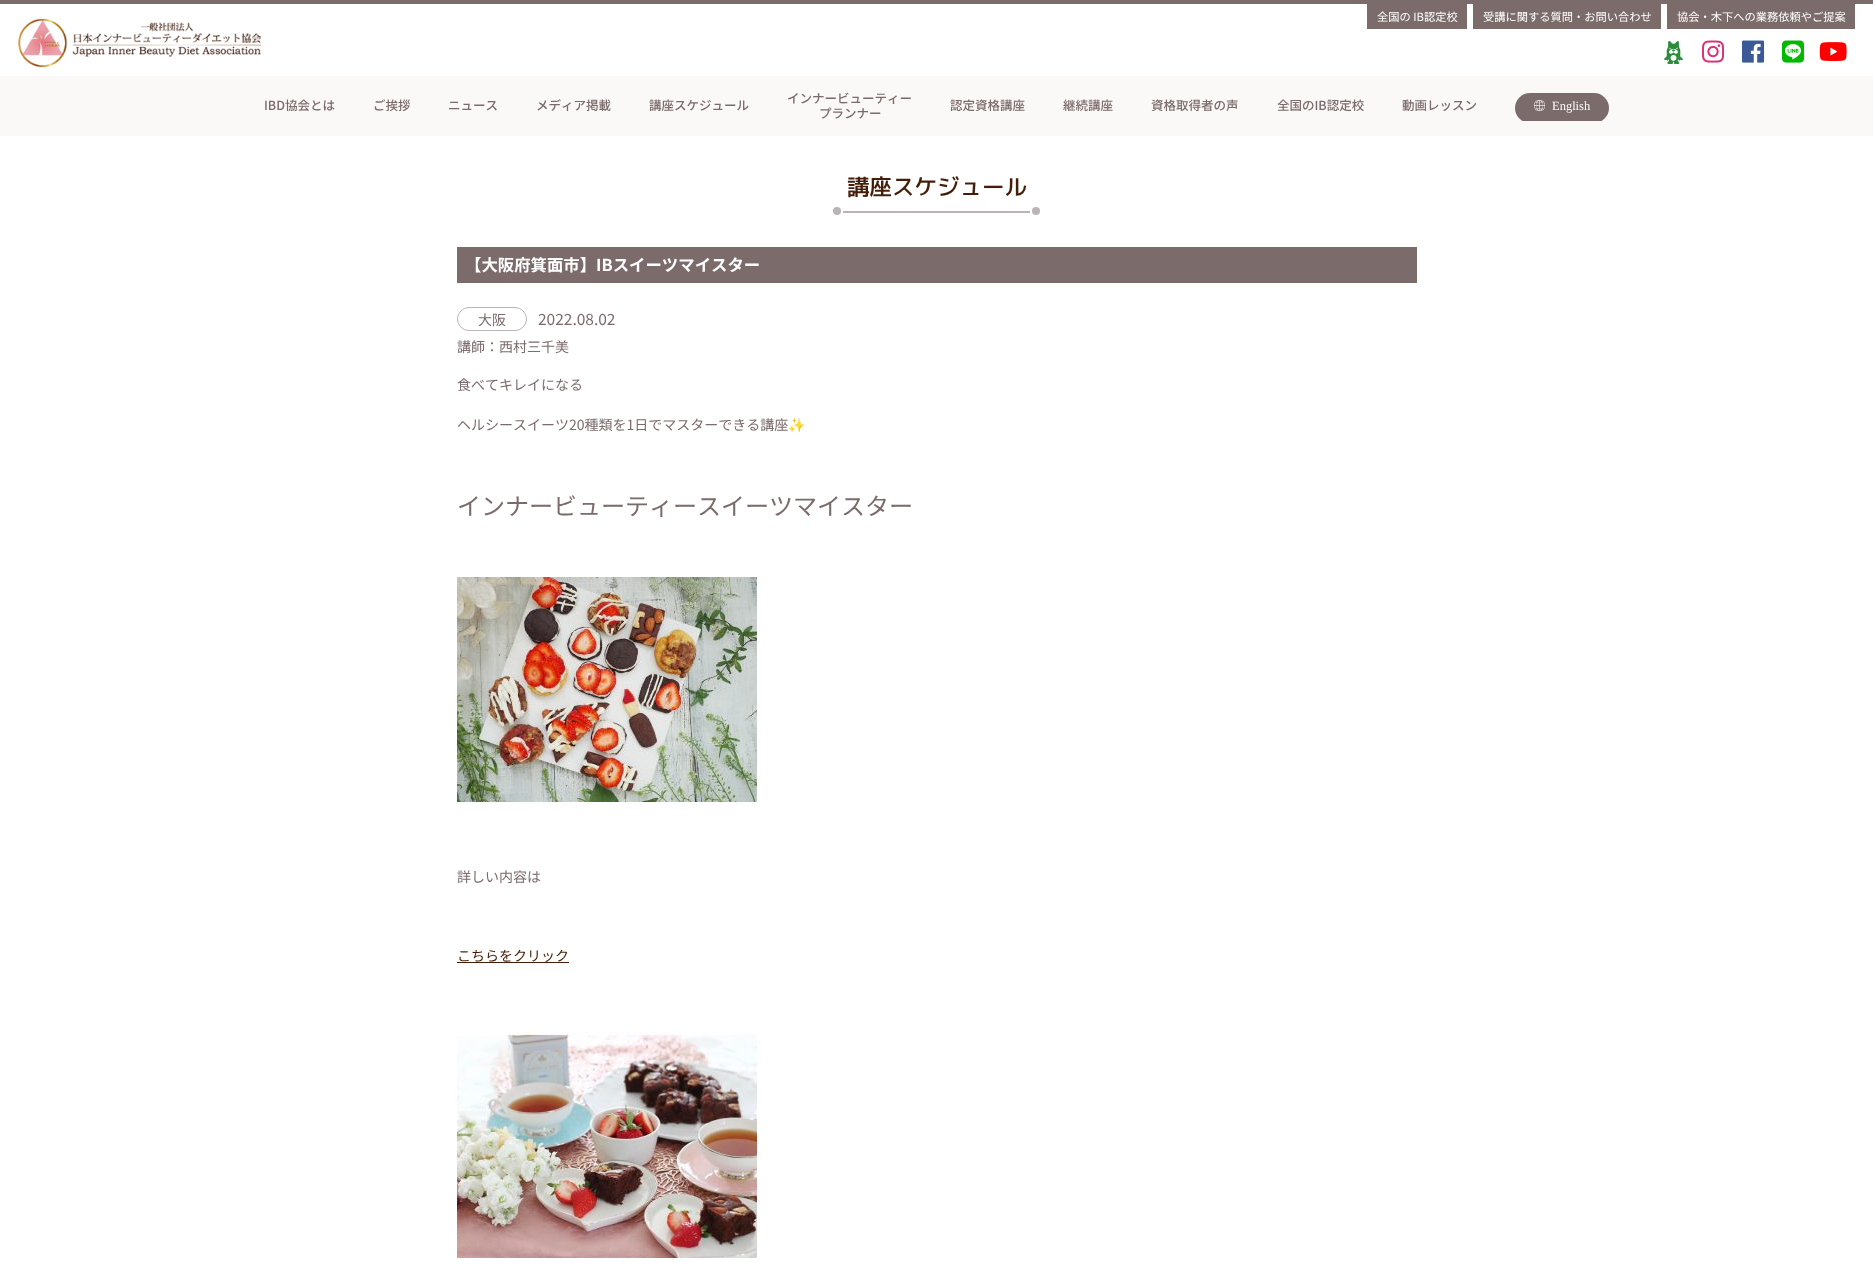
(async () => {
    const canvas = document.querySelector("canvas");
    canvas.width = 1873;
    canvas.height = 1281;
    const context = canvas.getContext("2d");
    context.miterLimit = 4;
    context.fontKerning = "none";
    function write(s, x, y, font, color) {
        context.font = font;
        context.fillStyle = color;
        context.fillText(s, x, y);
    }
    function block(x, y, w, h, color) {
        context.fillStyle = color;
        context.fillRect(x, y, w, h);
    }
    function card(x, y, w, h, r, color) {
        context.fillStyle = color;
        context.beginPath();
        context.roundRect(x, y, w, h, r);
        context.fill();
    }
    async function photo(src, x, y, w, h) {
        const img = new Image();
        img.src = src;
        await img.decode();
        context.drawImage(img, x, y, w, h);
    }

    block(0, 0, 1873, 1281, "rgb(255, 255, 255)");
    block(0, 0, 1873, 4, "rgb(123, 107, 107)");
    block(1367, 4, 100, 25, "rgb(123, 107, 107)");
    write("全国の IB認定校", 1377, 21, "11.25px Noto Sans JP", "rgb(255, 255, 255)");
    block(1473, 4, 188, 25, "rgb(123, 107, 107)");
    write("受講に関する質問・お問い合わせ", 1483, 21, "11.25px Noto Sans JP", "rgb(255, 255, 255)");
    block(1667, 4, 188, 25, "rgb(123, 107, 107)");
    write("協会・木下への業務依頼やご提案", 1677, 21, "11.25px Noto Sans JP", "rgb(255, 255, 255)");
    await photo("media/1.png", 18, 18, 244, 50);
    await photo("media/2.png", 1664, 41, 19, 23);
    await photo("media/3.png", 1702, 40, 23, 23);
    await photo("media/4.png", 1742, 40, 23, 23);
    await photo("media/5.png", 1782, 40, 23, 23);
    await photo("media/6.png", 1819, 42, 28, 19);
    block(0, 76, 1873, 60, "rgb(251, 249, 247)");
    write("IBD協会とは", 264, 110, "500 12.5px Noto Sans JP", "rgb(123, 107, 107)");
    write("ご挨拶", 373, 110, "500 12.5px Noto Sans JP", "rgb(123, 107, 107)");
    write("ニュース", 448, 110, "500 12.5px Noto Sans JP", "rgb(123, 107, 107)");
    write("メディア掲載", 536, 110, "500 12.5px Noto Sans JP", "rgb(123, 107, 107)");
    write("講座スケジュール", 649, 110, "500 12.5px Noto Sans JP", "rgb(123, 107, 107)");
    write("インナービューティー", 787, 103, "500 12.5px Noto Sans JP", "rgb(123, 107, 107)");
    write("プランナー", 819, 118, "500 12.5px Noto Sans JP", "rgb(123, 107, 107)");
    write("認定資格講座", 950, 110, "500 12.5px Noto Sans JP", "rgb(123, 107, 107)");
    write("継続講座", 1063, 110, "500 12.5px Noto Sans JP", "rgb(123, 107, 107)");
    write("資格取得者の声", 1151, 110, "500 12.5px Noto Sans JP", "rgb(123, 107, 107)");
    write("全国のIB認定校", 1277, 110, "500 12.5px Noto Sans JP", "rgb(123, 107, 107)");
    write("動画レッスン", 1402, 110, "500 12.5px Noto Sans JP", "rgb(123, 107, 107)");
    card(1515, 93, 94, 30, 15, "rgb(123, 108, 107)");
    block(1523, 121, 79, 2, "rgb(251, 249, 247)");
    await photo("media/7.png", 1534, 100, 11, 11);
    write("English", 1552, 110, "12.5px Liberation Serif", "rgb(255, 255, 255)");
    block(843, 211, 187, 2, "rgb(188, 180, 180)");
    write("講座スケジュール", 847, 195, "500 22.5px 'M PLUS 1p'", "rgb(69, 30, 9)");
    context.fillStyle = "rgb(188, 180, 180)";
    context.beginPath();
    context.arc(837, 211, 4, 0, Math.PI * 2);
    context.fill();
    context.beginPath();
    context.arc(1036, 211, 4, 0, Math.PI * 2);
    context.fill();
    block(457, 247, 960, 36, "rgb(123, 107, 107)");
    write("【大阪府箕面市】IBスイーツマイスター", 465, 271, "bold 16.4px Noto Sans JP", "rgb(255, 255, 255)");
    context.beginPath();
    context.roundRect(457.5, 307.5, 69, 23, 11.5);
    context.strokeStyle = "rgb(188, 180, 180)";
    context.stroke();
    write("大阪", 478, 325, "14px Noto Sans JP", "rgb(123, 107, 107)");
    write("2022.08.02", 538, 325, "15.5px Noto Sans JP", "rgb(123, 107, 107)");
    write("講師：西村三千美", 457, 352, "14px Noto Sans JP", "rgb(123, 107, 107)");
    write("食べてキレイになる", 457, 390, "14px Noto Sans JP", "rgb(123, 107, 107)");
    write("ヘルシースイーツ20種類を1日でマスターできる講座", 457, 430, "14px Noto Sans JP", "rgb(123, 107, 107)");
    write("✨", 788, 430, "14px Noto Color Emoji", "rgb(123, 107, 107)");
    write("インナービューティースイーツマイスター", 457, 515, "24px Noto Sans JP", "rgb(123, 107, 107)");
    await photo("media/8.png", 457, 577, 300, 225);
    write("詳しい内容は", 457, 882, "14px Noto Sans JP", "rgb(123, 107, 107)");
    block(457, 962, 112, 1, "rgb(69, 30, 9)");
    write("こちらをクリック", 457, 961, "14px Noto Sans JP", "rgb(69, 30, 9)");
    await photo("media/9.png", 457, 1032, 300, 226);
})();
